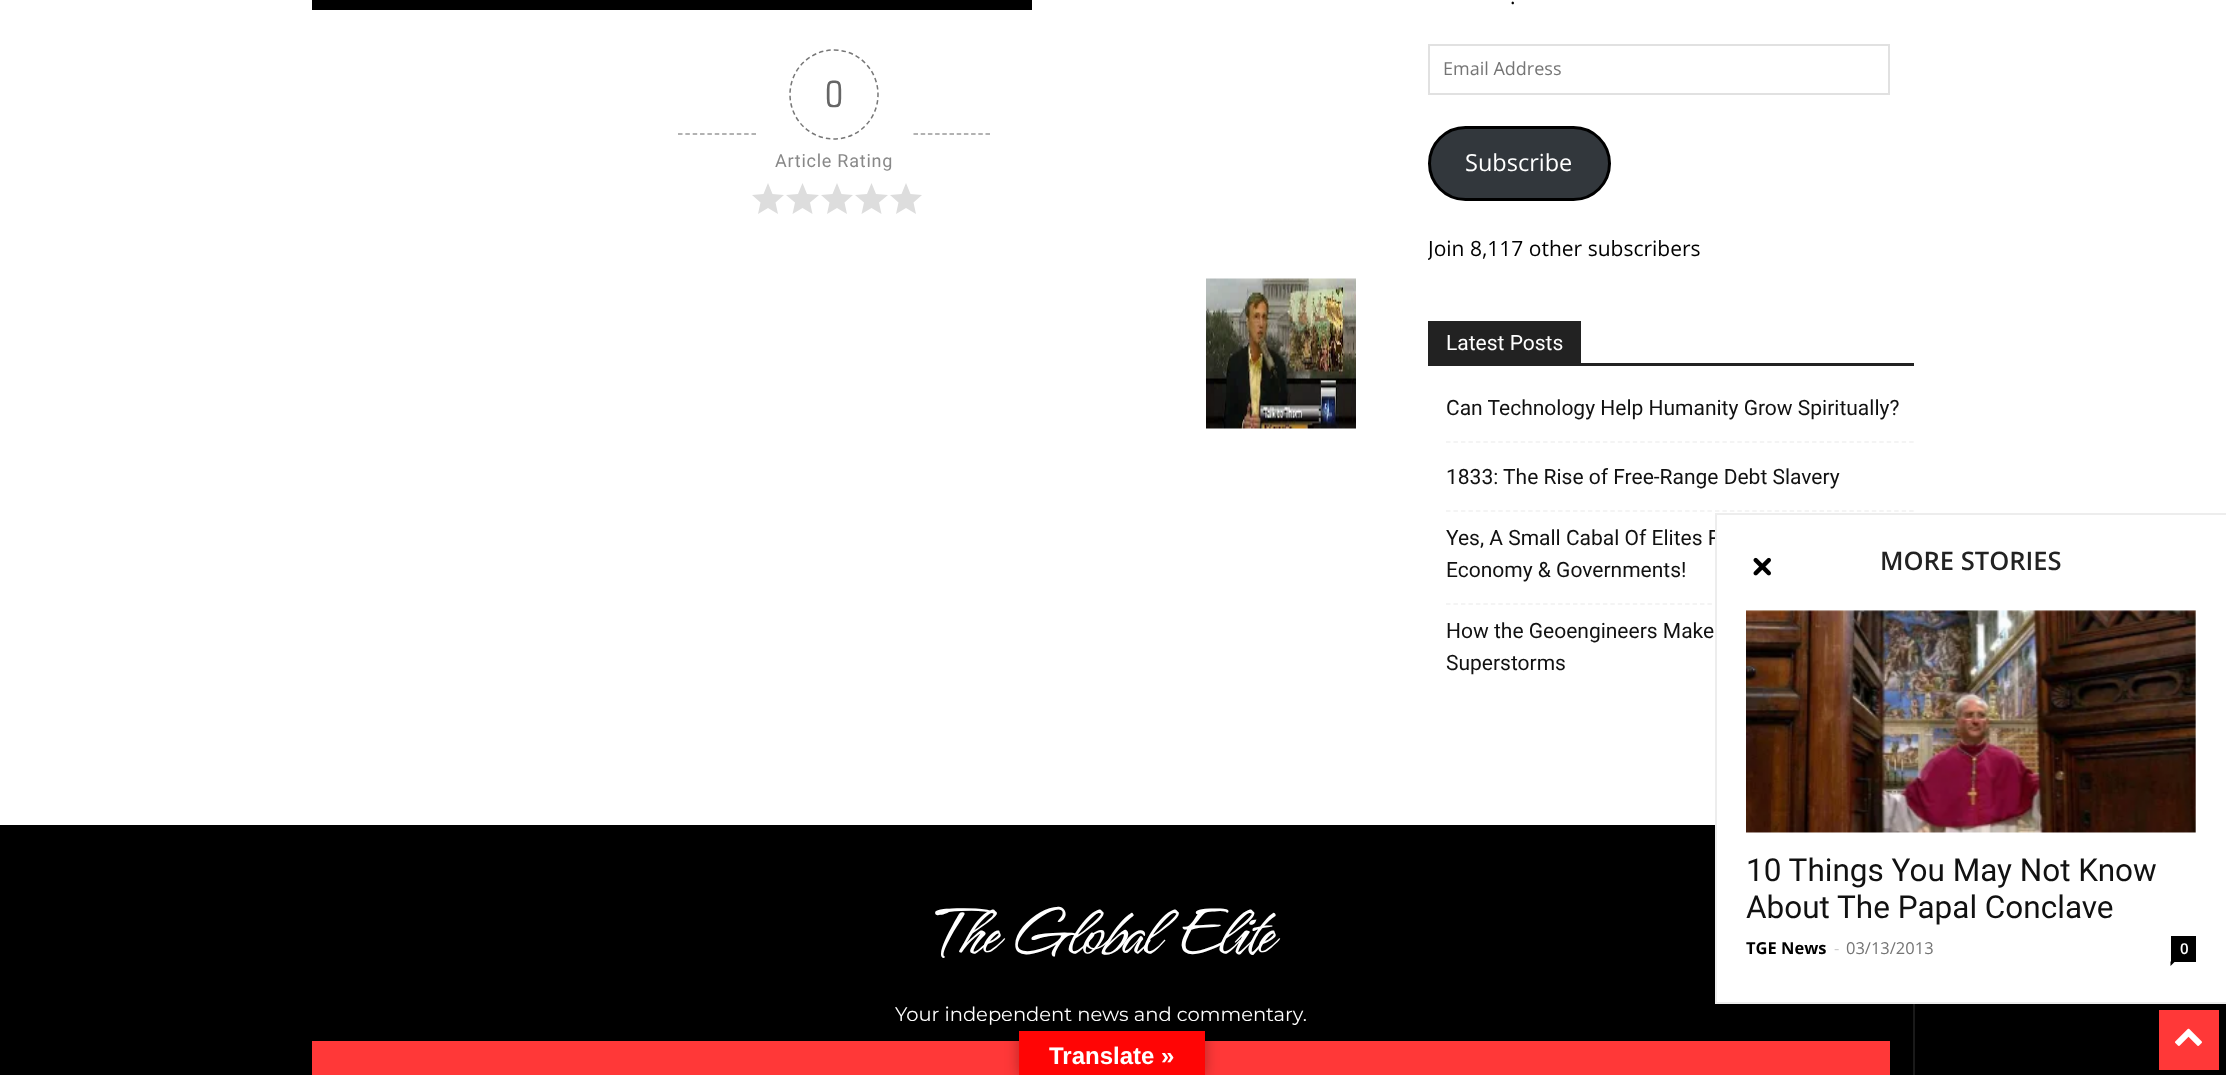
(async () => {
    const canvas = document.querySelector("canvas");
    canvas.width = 2226;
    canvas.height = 1075;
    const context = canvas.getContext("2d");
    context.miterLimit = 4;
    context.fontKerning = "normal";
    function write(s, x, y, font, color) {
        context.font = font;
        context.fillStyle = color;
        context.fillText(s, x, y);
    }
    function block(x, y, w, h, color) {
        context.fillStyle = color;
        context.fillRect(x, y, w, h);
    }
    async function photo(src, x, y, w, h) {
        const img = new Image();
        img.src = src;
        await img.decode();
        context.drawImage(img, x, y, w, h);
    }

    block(0, 0, 2226, 1075, "rgb(255, 255, 255)");
    block(312, 0, 720, 10, "rgb(0, 0, 0)");
    context.beginPath();
    context.moveTo(678, 134);
    context.lineTo(756, 134);
    context.strokeStyle = "rgb(153, 153, 153)";
    context.lineWidth = 1.5;
    context.setLineDash([4.5, 2.85]);
    context.stroke();
    context.beginPath();
    context.moveTo(834, 50);
    context.bezierCurveTo(858.5, 50, 878, 70, 878, 94.5);
    context.bezierCurveTo(878, 119, 858.5, 139, 834, 139);
    context.bezierCurveTo(809.5, 139, 790, 119, 790, 94.5);
    context.bezierCurveTo(790, 70, 809.5, 50, 834, 50);
    context.closePath();
    context.strokeStyle = "rgb(119, 119, 119)";
    context.setLineDash([4.5, 3]);
    context.stroke();
    write("0", 825, 107, "36px 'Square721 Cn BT'", "rgb(102, 102, 102)");
    context.letterSpacing = "0.75px";
    write("Article Rating", 775, 167, "18px Roboto", "rgb(136, 136, 136)");
    context.fillStyle = "rgb(221, 221, 221)";
    context.beginPath();
    context.moveTo(768, 208);
    context.lineTo(778, 214);
    context.lineTo(775.5, 202.5);
    context.lineTo(784, 195);
    context.lineTo(772.5, 194);
    context.lineTo(768, 183);
    context.lineTo(763.5, 194);
    context.lineTo(752, 195);
    context.lineTo(760.5, 202.5);
    context.lineTo(758, 214);
    context.closePath();
    context.fill();
    context.beginPath();
    context.moveTo(802.5, 208);
    context.lineTo(812.5, 214);
    context.lineTo(810, 202.5);
    context.lineTo(819, 195);
    context.lineTo(807, 194);
    context.lineTo(802.5, 183);
    context.lineTo(798, 194);
    context.lineTo(786, 195);
    context.lineTo(795, 202.5);
    context.lineTo(792.5, 214);
    context.closePath();
    context.fill();
    context.beginPath();
    context.moveTo(837, 208);
    context.lineTo(847, 214);
    context.lineTo(844.5, 202.5);
    context.lineTo(853, 195);
    context.lineTo(841.5, 194);
    context.lineTo(837, 183);
    context.lineTo(832.5, 194);
    context.lineTo(821, 195);
    context.lineTo(829.5, 202.5);
    context.lineTo(827, 214);
    context.closePath();
    context.fill();
    context.beginPath();
    context.moveTo(871.5, 208);
    context.lineTo(881.5, 214);
    context.lineTo(879, 202.5);
    context.lineTo(888, 195);
    context.lineTo(876, 194);
    context.lineTo(871.5, 183);
    context.lineTo(867, 194);
    context.lineTo(855, 195);
    context.lineTo(864, 202.5);
    context.lineTo(861.5, 214);
    context.closePath();
    context.fill();
    context.beginPath();
    context.moveTo(906, 208);
    context.lineTo(916, 214);
    context.lineTo(913.5, 202.5);
    context.lineTo(922, 195);
    context.lineTo(910.5, 194);
    context.lineTo(906, 183);
    context.lineTo(901.5, 194);
    context.lineTo(890, 195);
    context.lineTo(898.5, 202.5);
    context.lineTo(896, 214);
    context.closePath();
    context.fill();
    context.beginPath();
    context.moveTo(913.5, 134);
    context.lineTo(990, 134);
    context.strokeStyle = "rgb(153, 153, 153)";
    context.setLineDash([4.5, 2.7]);
    context.stroke();
    await photo("media/1.png", 1206, 278, 150, 151);
    context.letterSpacing = "0px";
    write(".", 1510, 4, "21px Open Sans", "rgb(0, 0, 0)");
    context.strokeStyle = "rgb(225, 225, 225)";
    context.lineWidth = 2;
    context.setLineDash([]);
    context.strokeRect(1429, 45, 460, 49);
    write("Email Address", 1443, 75, "18px Open Sans", "rgb(117, 117, 117)");
    context.fillStyle = "rgb(50, 55, 60)";
    context.beginPath();
    context.roundRect(1429.5, 127.5, 180, 72, 36);
    context.fill();
    context.strokeStyle = "rgb(0, 0, 0)";
    context.lineWidth = 3;
    context.stroke();
    write("Subscribe", 1465, 171, "23.5px Open Sans", "rgb(255, 255, 255)");
    context.save();
    context.beginPath();
    context.rect(1428, 0, 486, 264);
    context.clip();
    write("Join 8,117 other subscribers", 1428, 256, "21px Open Sans", "rgb(0, 0, 0)");
    context.restore();
    block(1428, 363, 486, 3, "rgb(34, 34, 34)");
    block(1428, 321, 153, 42, "rgb(34, 34, 34)");
    write("Latest Posts", 1446, 350, "21px Roboto", "rgb(255, 255, 255)");
    context.beginPath();
    context.moveTo(1446, 442);
    context.lineTo(1914, 442);
    context.strokeStyle = "rgb(241, 241, 241)";
    context.lineWidth = 1.5;
    context.setLineDash([4.5, 2.97]);
    context.stroke();
    write("Can Technology Help Humanity Grow Spiritually?", 1446, 415, "21px Roboto", "rgb(17, 17, 17)");
    context.beginPath();
    context.moveTo(1446, 511);
    context.lineTo(1914, 511);
    context.stroke();
    write("1833: The Rise of Free-Range Debt Slavery", 1446, 484, "21px Roboto", "rgb(17, 17, 17)");
    context.beginPath();
    context.moveTo(1446, 604);
    context.lineTo(1914, 604);
    context.stroke();
    write("Yes, A Small Cabal Of Elites R", 1446, 545, "21px Roboto", "rgb(17, 17, 17)");
    write("Economy & Governments!", 1446, 577, "21px Roboto", "rgb(17, 17, 17)");
    write("How the Geoengineers Make", 1446, 638, "21px Roboto", "rgb(17, 17, 17)");
    write("Superstorms", 1446, 670, "21px Roboto", "rgb(17, 17, 17)");
    block(0, 825, 2226, 250, "rgb(0, 0, 0)");
    block(1913, 1004, 2, 71, "rgb(26, 26, 26)");
    context.letterSpacing = "-3px";
    write("The Global Elite", 934, 953, "75px Hurricane", "rgb(255, 255, 255)");
    context.letterSpacing = "0px";
    write("Your independent news and commentary.", 895, 1021, "100 19.5px Montserrat", "rgb(255, 255, 255)");
    block(312, 1041, 1578, 34, "rgb(255, 56, 56)");
    block(1717, 530, 509, 472, "rgb(255, 255, 255)");
    block(1715, 513, 511, 2, "rgb(237, 237, 237)");
    block(1715, 1002, 511, 2, "rgb(237, 237, 237)");
    block(1715, 513, 2, 491, "rgb(237, 237, 237)");
    await photo("media/2.png", 1753, 557, 18, 19);
    write("MORE STORIES", 1880, 570, "600 25.5px Open Sans", "rgb(34, 34, 34)");
    await photo("media/3.png", 1746, 610, 450, 223);
    write("10 Things You May Not Know", 1746, 881, "31.5px Roboto", "rgb(17, 17, 17)");
    write("About The Papal Conclave", 1746, 918, "31.5px Roboto", "rgb(17, 17, 17)");
    write("TGE News", 1746, 954, "bold 16.5px Open Sans", "rgb(0, 0, 0)");
    write("-", 1834, 954, "16.5px Open Sans", "rgb(204, 204, 204)");
    write("03/13/2013", 1846, 954, "16.5px Open Sans", "rgb(117, 117, 117)");
    block(2171, 936, 25, 26, "rgb(0, 0, 0)");
    write("0", 2180, 954, "600 15px Open Sans", "rgb(255, 255, 255)");
    context.fillStyle = "rgb(0, 0, 0)";
    context.beginPath();
    context.moveTo(2170.5, 961.5);
    context.lineTo(2175, 961.5);
    context.lineTo(2170.5, 966);
    context.closePath();
    context.fill();
    context.fillStyle = "rgba(0, 0, 0, 0.3)";
    context.filter = "blur(7px)";
    context.beginPath();
    context.rect(1019, 1031, 186, 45);
    context.fill();
    context.filter = "none";
    block(1019, 1031, 186, 44, "rgb(255, 5, 5)");
    write("Translate »", 1049, 1064, "bold 24px Liberation Sans", "rgb(255, 255, 255)");
    block(2159, 1010, 60, 60, "rgb(255, 56, 56)");
    await photo("media/4.png", 2175, 1028, 27, 18);
})();
